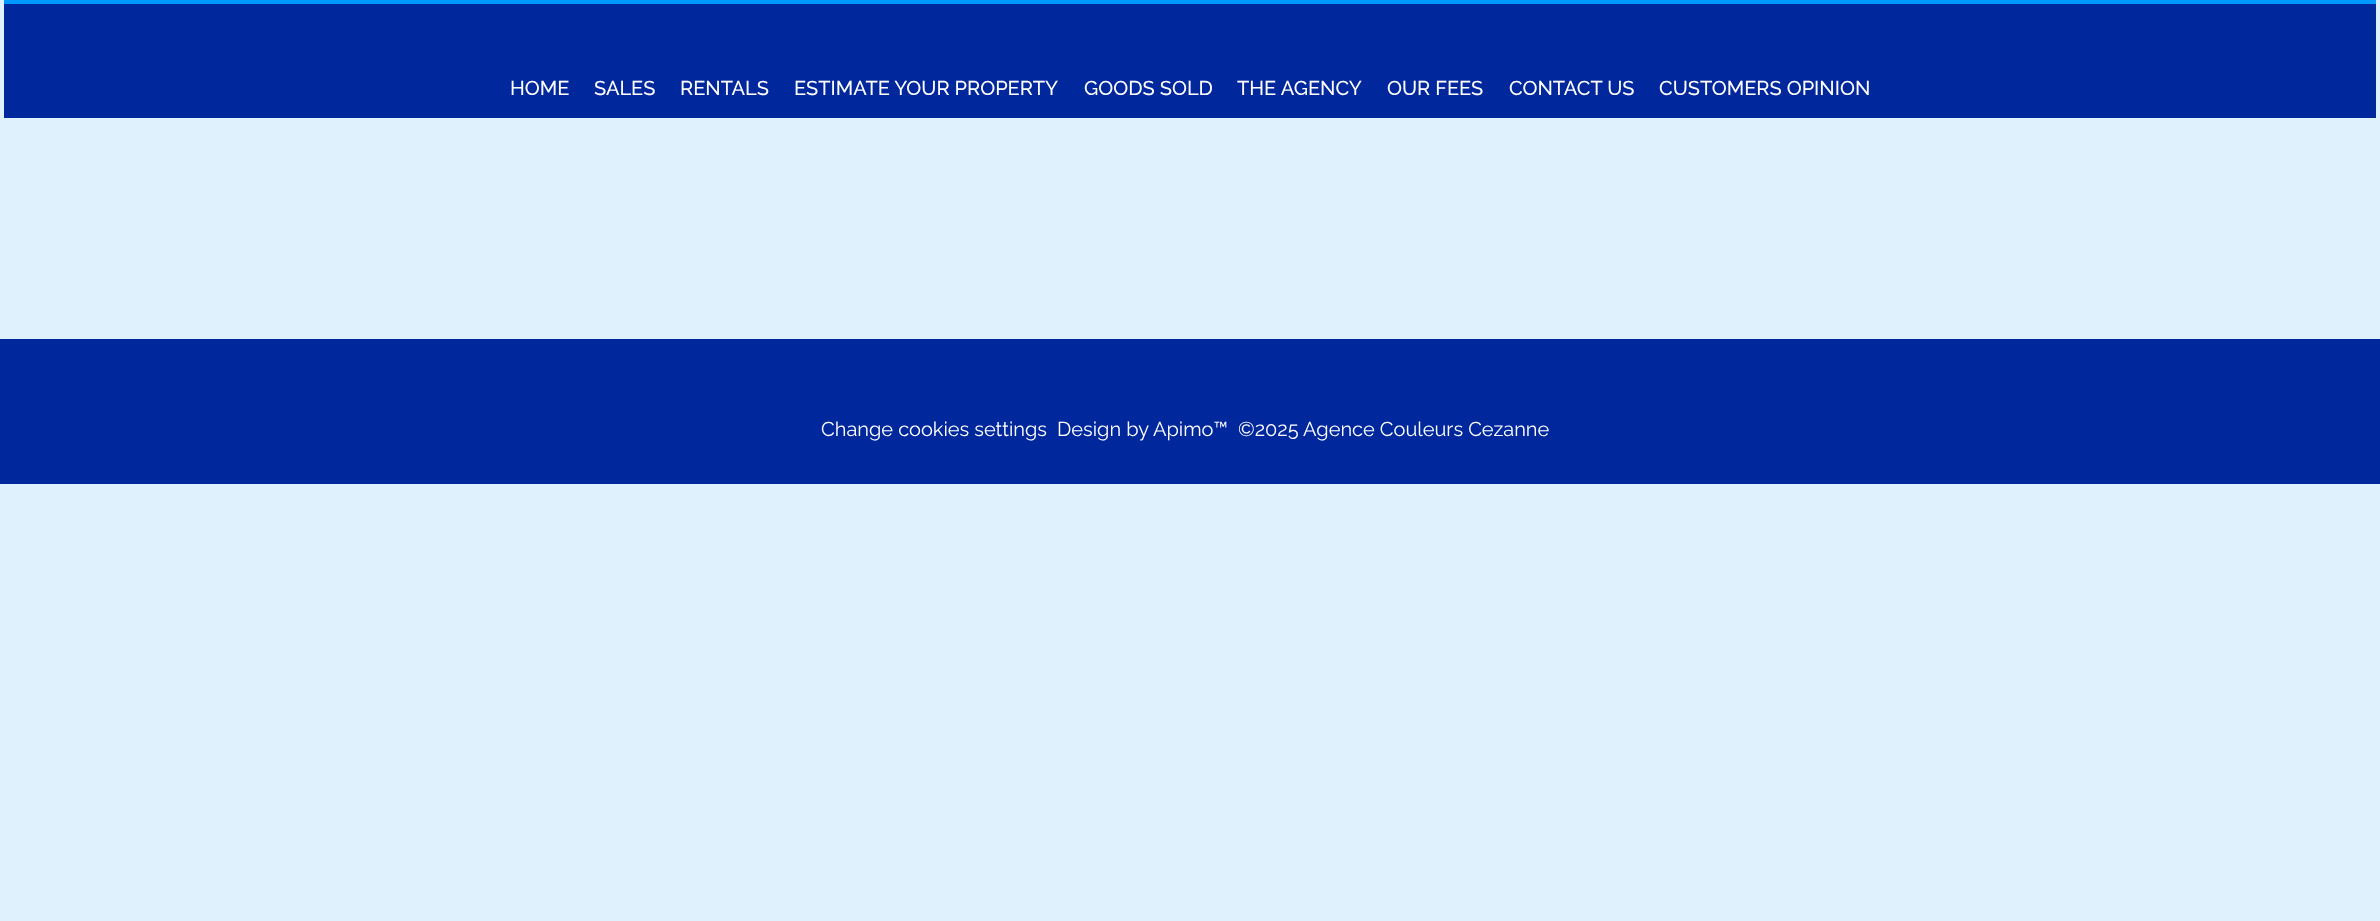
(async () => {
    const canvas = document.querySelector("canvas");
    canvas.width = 2380;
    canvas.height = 921;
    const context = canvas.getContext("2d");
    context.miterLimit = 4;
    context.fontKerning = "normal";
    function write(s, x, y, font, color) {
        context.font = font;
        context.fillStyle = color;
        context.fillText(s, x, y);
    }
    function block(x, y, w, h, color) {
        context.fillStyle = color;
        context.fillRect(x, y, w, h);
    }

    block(0, 0, 2380, 921, "rgb(222, 241, 253)");
    block(4, 4, 2372, 114, "rgb(0, 39, 155)");
    block(4, 0, 2372, 4, "rgb(0, 151, 255)");
    write("HOME", 510, 95, "500 20px Raleway", "rgb(255, 255, 255)");
    write("SALES", 594, 95, "500 20px Raleway", "rgb(255, 255, 255)");
    write("RENTALS", 680, 95, "500 20px Raleway", "rgb(255, 255, 255)");
    write("ESTIMATE YOUR PROPERTY", 794, 95, "500 20px Raleway", "rgb(255, 255, 255)");
    write("GOODS SOLD", 1084, 95, "500 20px Raleway", "rgb(255, 255, 255)");
    write("THE AGENCY", 1237, 95, "500 20px Raleway", "rgb(255, 255, 255)");
    write("OUR FEES", 1387, 95, "500 20px Raleway", "rgb(255, 255, 255)");
    write("CONTACT US", 1509, 95, "500 20px Raleway", "rgb(255, 255, 255)");
    write("CUSTOMERS OPINION", 1659, 95, "500 20px Raleway", "rgb(255, 255, 255)");
    block(0, 339, 2380, 145, "rgb(0, 39, 155)");
    write("Change cookies settings", 821, 436, "20px Raleway", "rgb(255, 255, 255)");
    write("Design by", 1057, 436, "20px Raleway", "rgb(255, 255, 255)");
    write("Apimo™", 1153, 436, "20px Raleway", "rgb(255, 255, 255)");
    write("©2025 Agence Couleurs Cezanne", 1238, 436, "20px Raleway", "rgb(255, 255, 255)");
})();
